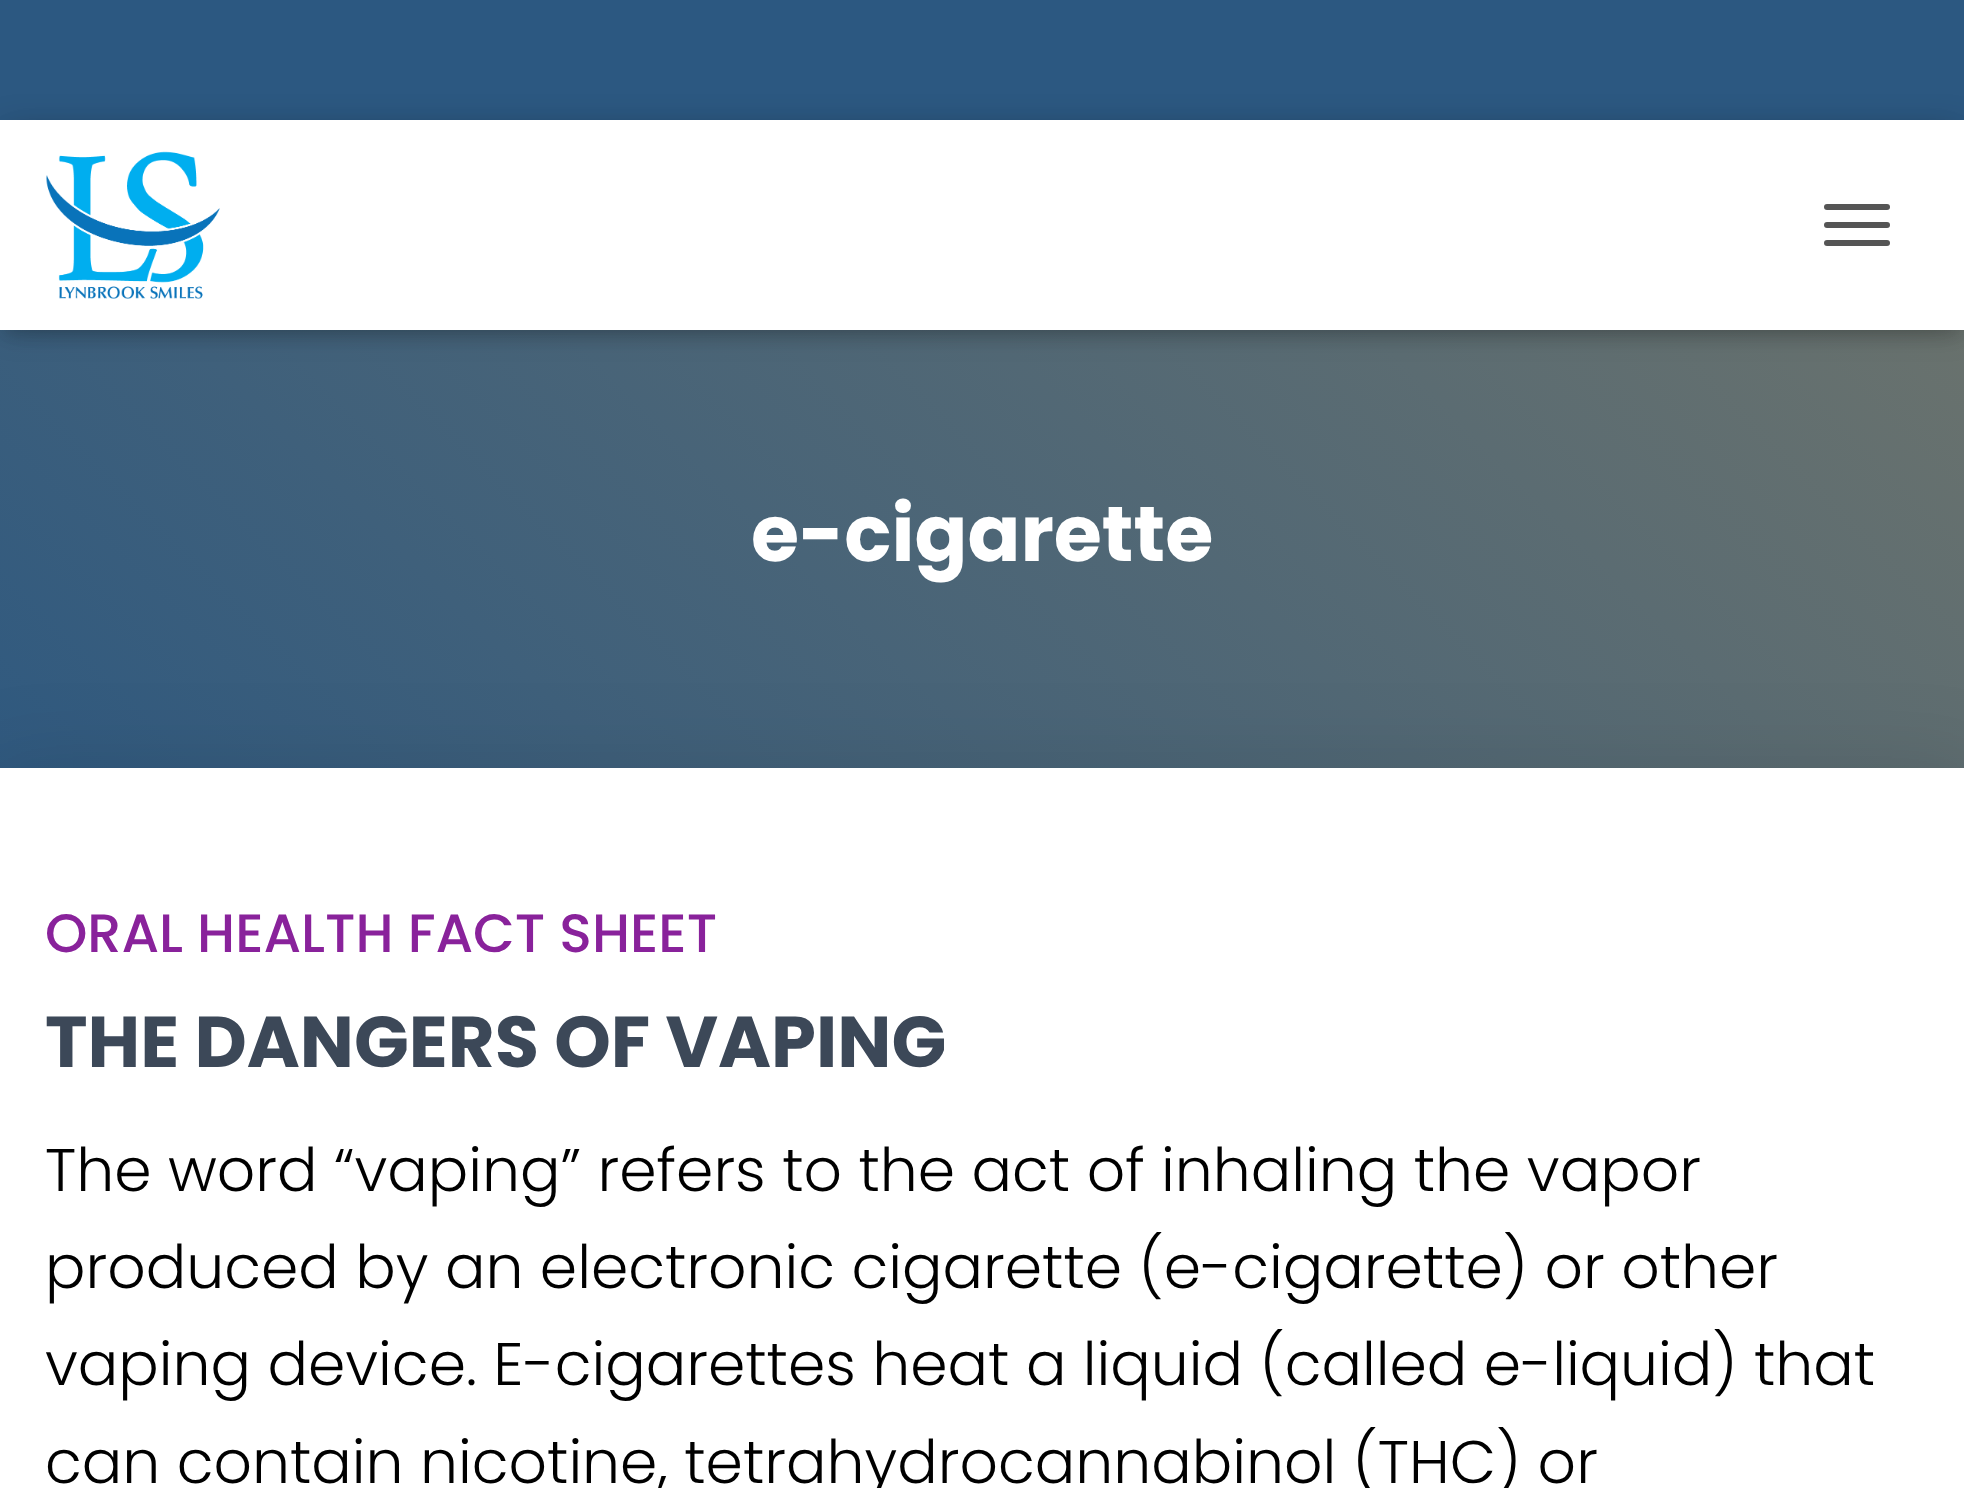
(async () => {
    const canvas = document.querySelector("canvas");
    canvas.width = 1964;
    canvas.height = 1488;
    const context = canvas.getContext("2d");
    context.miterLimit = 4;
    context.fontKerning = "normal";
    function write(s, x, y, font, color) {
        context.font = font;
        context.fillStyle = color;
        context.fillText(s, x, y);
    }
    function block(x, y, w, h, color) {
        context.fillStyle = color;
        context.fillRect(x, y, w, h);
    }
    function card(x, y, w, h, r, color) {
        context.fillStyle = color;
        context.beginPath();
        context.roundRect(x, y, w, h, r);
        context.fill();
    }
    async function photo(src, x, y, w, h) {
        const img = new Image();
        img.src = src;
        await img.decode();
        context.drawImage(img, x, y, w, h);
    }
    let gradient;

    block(0, 0, 1964, 1488, "rgb(44, 88, 129)");
    gradient = context.createLinearGradient(284, 1232, 1681, -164);
    gradient.addColorStop(0, "rgb(44, 88, 129)");
    gradient.addColorStop(1, "rgb(110, 116, 108)");
    context.fillStyle = gradient;
    context.fillRect(0, 330, 1964, 438);
    context.fillStyle = "rgba(0, 0, 0, 0.1)";
    context.filter = "blur(7.5px)";
    context.beginPath();
    context.rect(6, 138, 1953, 198);
    context.fill();
    context.filter = "none";
    context.fillStyle = "rgba(0, 0, 0, 0.12)";
    context.filter = "blur(15px)";
    context.beginPath();
    context.rect(0, 123, 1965, 210);
    context.fill();
    context.filter = "none";
    context.fillStyle = "rgba(0, 0, 0, 0.42)";
    context.filter = "blur(15px)";
    context.beginPath();
    context.rect(18, 141, 1929, 174);
    context.fill();
    context.filter = "none";
    block(0, 120, 1964, 210, "rgb(255, 255, 255)");
    await photo("media/1.png", 46, 151, 174, 148);
    card(1824, 204, 66, 6, 3, "rgb(85, 85, 85)");
    card(1824, 222, 66, 6, 3, "rgb(85, 85, 85)");
    card(1824, 240, 66, 6, 3, "rgb(85, 85, 85)");
    write("e-cigarette", 751, 561, "bold 78px Poppins", "rgb(255, 255, 255)");
    context.fillStyle = "rgba(0, 0, 0, 0.12)";
    context.filter = "blur(45px)";
    context.beginPath();
    context.rect(-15, 771, 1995, 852);
    context.fill();
    context.filter = "none";
    block(0, 768, 1964, 720, "rgb(255, 255, 255)");
    write("ORAL HEALTH FACT SHEET", 45, 952, "500 54px Poppins", "rgb(137, 34, 155)");
    write("THE DANGERS OF VAPING", 45, 1067, "bold 72px Poppins", "rgb(60, 72, 88)");
    write("The word “vaping” refers to the act of inhaling the vapor", 45, 1191, "300 60px Poppins", "rgb(0, 0, 0)");
    write("produced by an electronic cigarette (e-cigarette) or other", 45, 1288, "300 60px Poppins", "rgb(0, 0, 0)");
    write("vaping device. E-cigarettes heat a liquid (called e-liquid) that", 45, 1385, "300 60px Poppins", "rgb(0, 0, 0)");
    write("can contain nicotine, tetrahydrocannabinol (THC) or", 45, 1483, "300 60px Poppins", "rgb(0, 0, 0)");
})();
